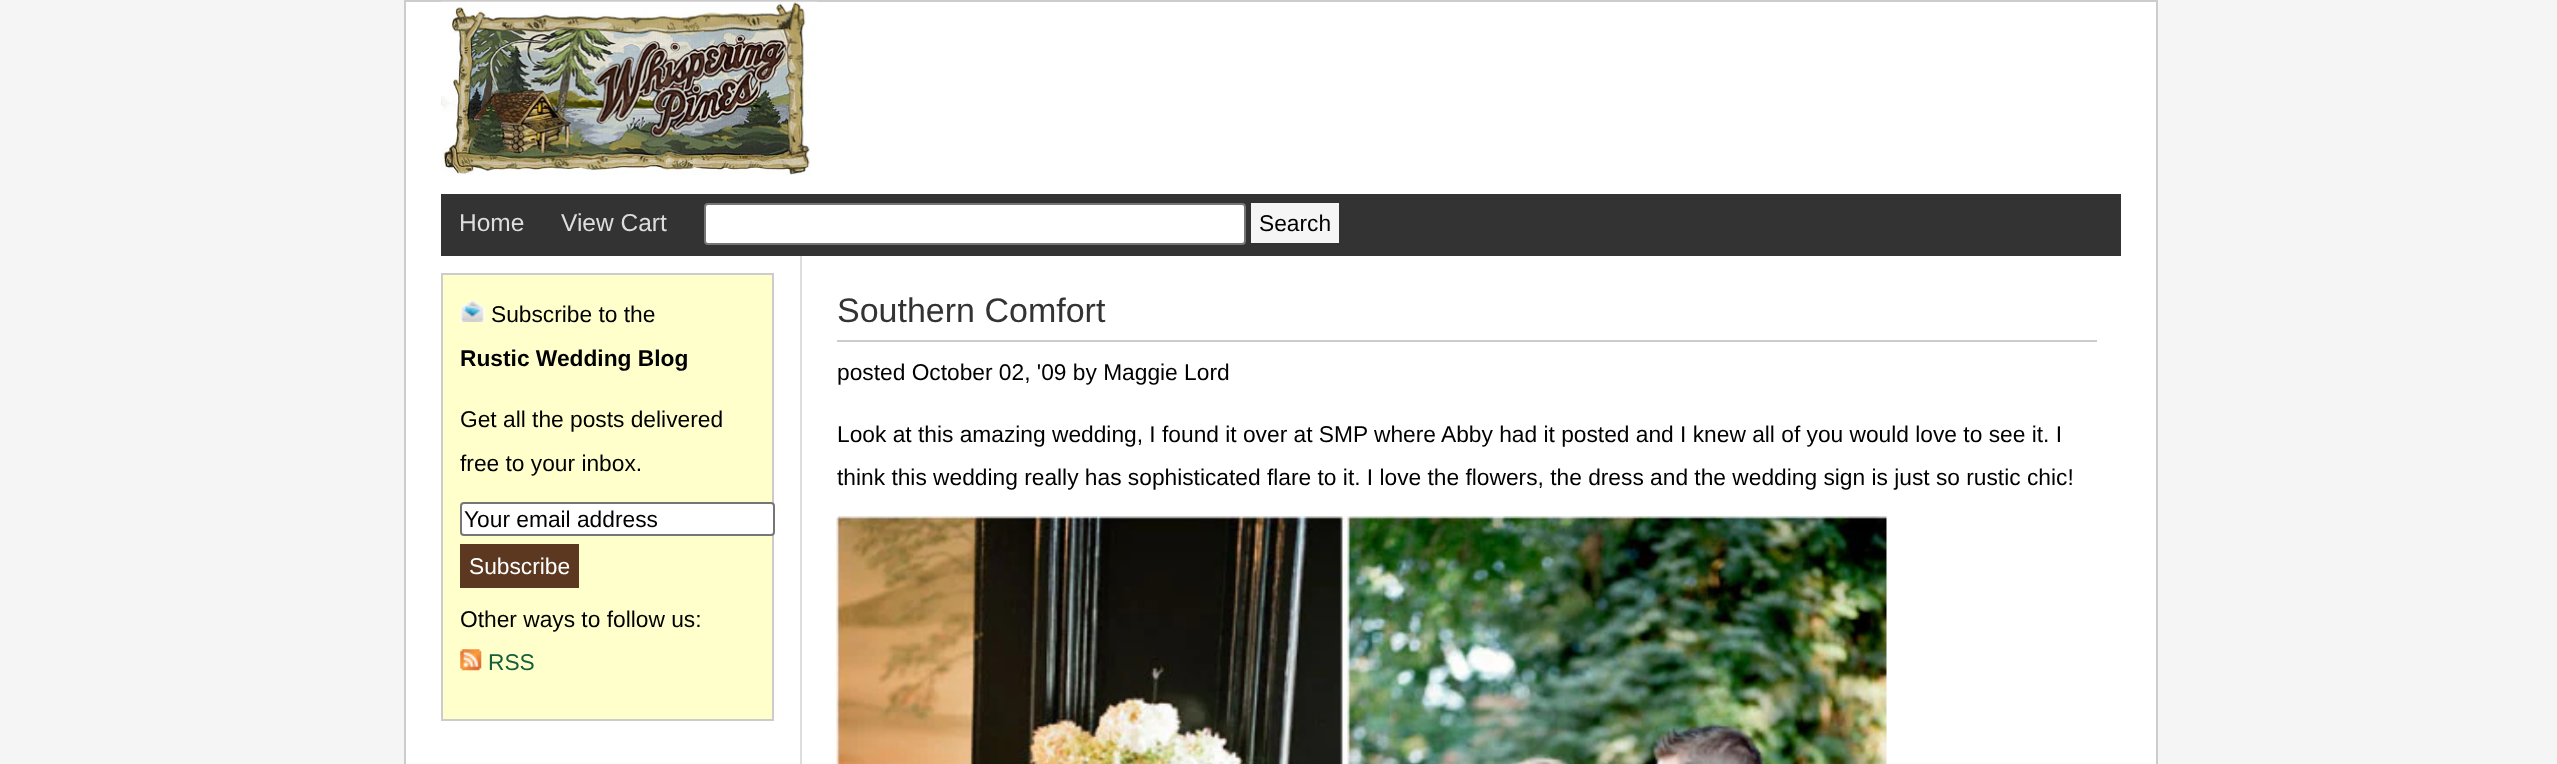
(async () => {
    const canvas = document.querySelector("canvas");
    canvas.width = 2557;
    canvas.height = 764;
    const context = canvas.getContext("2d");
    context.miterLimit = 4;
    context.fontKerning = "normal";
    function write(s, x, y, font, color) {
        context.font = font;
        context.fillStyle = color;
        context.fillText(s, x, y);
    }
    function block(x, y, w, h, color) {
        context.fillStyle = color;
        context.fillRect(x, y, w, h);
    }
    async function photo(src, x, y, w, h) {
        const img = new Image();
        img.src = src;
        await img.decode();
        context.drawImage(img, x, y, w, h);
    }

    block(0, 0, 2557, 764, "rgb(245, 245, 245)");
    context.strokeStyle = "rgb(204, 204, 204)";
    context.lineWidth = 2;
    context.strokeRect(405, 1, 1752, 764);
    block(406, 2, 1750, 762, "rgb(255, 255, 255)");
    await photo("media/1.png", 441, 1, 376, 174);
    block(441, 194, 1680, 62, "rgb(51, 51, 51)");
    write("Home", 459, 231, "24.5px Liberation Sans", "rgb(221, 221, 221)");
    write("View Cart", 561, 231, "24.5px Liberation Sans", "rgb(221, 221, 221)");
    context.fillStyle = "rgb(255, 255, 255)";
    context.beginPath();
    context.roundRect(705, 204, 540, 40, 3);
    context.fill();
    context.strokeStyle = "rgb(118, 118, 118)";
    context.stroke();
    block(1251, 203, 88, 40, "rgb(245, 245, 245)");
    write("Search", 1259, 231, "22.75px Liberation Sans", "rgb(0, 0, 0)");
    block(800, 256, 2, 508, "rgb(221, 221, 221)");
    context.fillStyle = "rgb(255, 255, 204)";
    context.beginPath();
    context.rect(442, 274, 331, 446);
    context.fill();
    context.strokeStyle = "rgb(204, 204, 204)";
    context.stroke();
    await photo("media/2.png", 460, 301, 25, 21);
    write("Subscribe to the", 491, 322, "22.75px Liberation Sans", "rgb(0, 0, 0)");
    write("Rustic Wedding Blog", 460, 366, "bold 22.75px Liberation Sans", "rgb(0, 0, 0)");
    write("Get all the posts delivered", 460, 427, "22.75px Liberation Sans", "rgb(0, 0, 0)");
    write("free to your inbox.", 460, 471, "22.75px Liberation Sans", "rgb(0, 0, 0)");
    context.fillStyle = "rgb(255, 255, 255)";
    context.beginPath();
    context.roundRect(461, 503, 313, 32, 3);
    context.fill();
    context.strokeStyle = "rgb(118, 118, 118)";
    context.stroke();
    write("Your email address", 464, 527, "22.75px Liberation Sans", "rgb(0, 0, 0)");
    block(460, 544, 119, 44, "rgb(92, 56, 33)");
    write("Subscribe", 469, 574, "22.75px Liberation Sans", "rgb(255, 255, 255)");
    write("Other ways to follow us:", 460, 627, "22.75px Liberation Sans", "rgb(0, 0, 0)");
    await photo("media/3.png", 460, 649, 22, 22);
    write("RSS", 488, 670, "22.75px Liberation Sans", "rgb(21, 95, 58)");
    block(837, 340, 1260, 2, "rgb(204, 204, 204)");
    write("Southern Comfort", 837, 322, "34px Liberation Sans", "rgb(51, 51, 51)");
    write("posted October 02, '09 by Maggie Lord", 837, 380, "22.75px Liberation Sans", "rgb(0, 0, 0)");
    write("Look at this amazing wedding, I found it over at SMP", 837, 442, "22.75px Liberation Sans", "rgb(0, 0, 0)");
    write("where Abby had it posted and I knew all of you would love to see it. I", 1374, 442, "22.75px Liberation Sans", "rgb(0, 0, 0)");
    write("think this wedding really has sophisticated flare to it. I love the flowers, the dress and the wedding sign is just so rustic chic!", 837, 485, "22.75px Liberation Sans", "rgb(0, 0, 0)");
    await photo("media/4.png", 836, 516, 1051, 248);
})();
